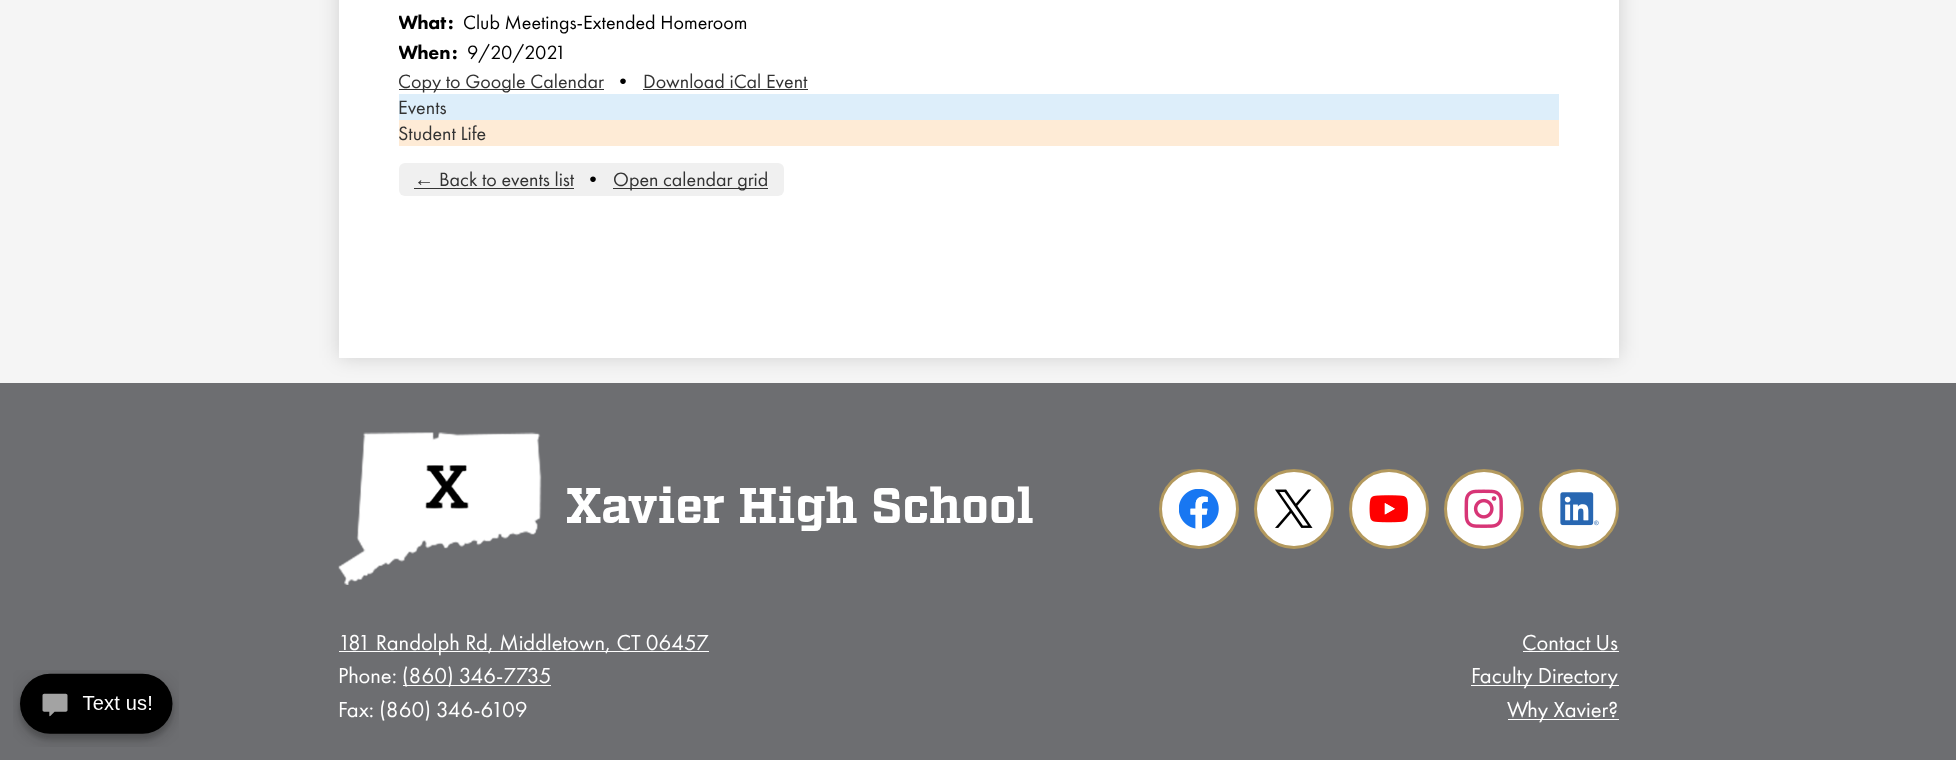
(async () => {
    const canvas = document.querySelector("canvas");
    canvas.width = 1956;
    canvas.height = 760;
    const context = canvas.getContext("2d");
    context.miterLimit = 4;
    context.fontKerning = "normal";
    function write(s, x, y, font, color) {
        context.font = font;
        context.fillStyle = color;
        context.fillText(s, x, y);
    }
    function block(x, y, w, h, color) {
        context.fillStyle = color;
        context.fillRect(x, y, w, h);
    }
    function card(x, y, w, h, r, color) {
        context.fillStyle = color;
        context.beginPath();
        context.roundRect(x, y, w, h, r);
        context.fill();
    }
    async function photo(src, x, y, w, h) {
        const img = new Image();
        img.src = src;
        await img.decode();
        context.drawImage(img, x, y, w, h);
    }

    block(0, 0, 1956, 760, "rgb(245, 245, 245)");
    block(0, 383, 1956, 377, "rgb(109, 110, 113)");
    context.fillStyle = "rgba(0, 0, 0, 0.15)";
    context.filter = "blur(10px)";
    context.beginPath();
    context.rect(339, -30, 1280, 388);
    context.fill();
    context.filter = "none";
    block(339, 0, 1280, 358, "rgb(255, 255, 255)");
    context.save();
    context.beginPath();
    context.rect(399, 8, 1160, 60);
    context.clip();
    write("What", 398, 29, "900 20px Futura PT", "rgb(0, 0, 0)");
    context.restore();
    write(":", 448, 29, "900 20px Futura PT", "rgb(0, 0, 0)");
    write("Club Meetings-Extended Homeroom", 463, 29, "20px Futura PT", "rgb(0, 0, 0)");
    context.save();
    context.beginPath();
    context.rect(399, 8, 1160, 60);
    context.clip();
    write("When", 398, 59, "900 20px Futura PT", "rgb(0, 0, 0)");
    context.restore();
    write(":", 452, 59, "900 20px Futura PT", "rgb(0, 0, 0)");
    write("9/20/2021", 467, 59, "20px Futura PT", "rgb(0, 0, 0)");
    block(399, 89, 205, 1, "rgb(51, 51, 51)");
    write("Copy to Google Calendar", 398, 88, "20px Futura PT", "rgb(51, 51, 51)");
    write("•", 613, 88, "20px Futura PT", "rgb(0, 0, 0)");
    write("Download iCal Event", 643, 88, "20px Futura PT", "rgb(51, 51, 51)");
    block(643, 89, 165, 1, "rgb(51, 51, 51)");
    block(399, 94, 1160, 26, "rgb(221, 238, 250)");
    write("Events", 398, 114, "20px Futura PT", "rgb(51, 51, 51)");
    block(399, 120, 1160, 26, "rgb(254, 235, 214)");
    write("Student Life", 398, 140, "20px Futura PT", "rgb(51, 51, 51)");
    card(399, 163, 385, 33, 6, "rgb(240, 240, 240)");
    write("Back to events list", 439, 186, "20px Futura PT", "rgb(51, 51, 51)");
    write("•", 583, 186, "20px Futura PT", "rgb(0, 0, 0)");
    block(613, 188, 155, 1, "rgb(51, 51, 51)");
    write("Open calendar grid", 613, 186, "20px Futura PT", "rgb(51, 51, 51)");
    write("←", 414, 186, "20px Liberation Sans", "rgb(51, 51, 51)");
    block(414, 188, 160, 1, "rgb(51, 51, 51)");
    await photo("media/1.png", 13, 670, 166, 77);
    await photo("media/2.png", 338, 432, 204, 153);
    write("Xavier High School", 566, 523, "bold 50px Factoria", "rgb(255, 255, 255)");
    context.beginPath();
    context.arc(1199, 509, 38.5, 0, Math.PI * 2);
    context.fill();
    context.strokeStyle = "rgb(179, 153, 93)";
    context.lineWidth = 3;
    context.stroke();
    await photo("media/3.png", 1179, 489, 40, 40);
    context.beginPath();
    context.arc(1294, 509, 38.5, 0, Math.PI * 2);
    context.fill();
    context.stroke();
    await photo("media/4.png", 1275, 489, 38, 39);
    context.beginPath();
    context.arc(1389, 509, 38.5, 0, Math.PI * 2);
    context.fill();
    context.stroke();
    await photo("media/5.png", 1369, 495, 39, 28);
    context.beginPath();
    context.arc(1484, 509, 38.5, 0, Math.PI * 2);
    context.fill();
    context.stroke();
    await photo("media/6.png", 1464, 489, 39, 39);
    context.beginPath();
    context.arc(1579, 509, 38.5, 0, Math.PI * 2);
    context.fill();
    context.stroke();
    await photo("media/7.png", 1560, 492, 39, 34);
    block(339, 651, 370, 1, "rgb(255, 255, 255)");
    write("181 Randolph Rd, Middletown, CT 06457", 338, 650, "22.5px Futura PT", "rgb(255, 255, 255)");
    write("Phone:", 338, 683, "22.5px Futura PT", "rgb(255, 255, 255)");
    block(403, 685, 148, 1, "rgb(255, 255, 255)");
    write("(860) 346-7735", 402, 683, "22.5px Futura PT", "rgb(255, 255, 255)");
    write("Fax: (860) 346-6109", 338, 717, "22.5px Futura PT", "rgb(255, 255, 255)");
    write("Contact Us", 1522, 650, "22.5px Futura PT", "rgb(255, 255, 255)");
    block(1523, 651, 96, 1, "rgb(255, 255, 255)");
    block(1471, 685, 148, 1, "rgb(255, 255, 255)");
    write("Faculty Directory", 1471, 683, "22.5px Futura PT", "rgb(255, 255, 255)");
    block(1508, 719, 111, 1, "rgb(255, 255, 255)");
    write("Why Xavier?", 1507, 717, "22.5px Futura PT", "rgb(255, 255, 255)");
})();
